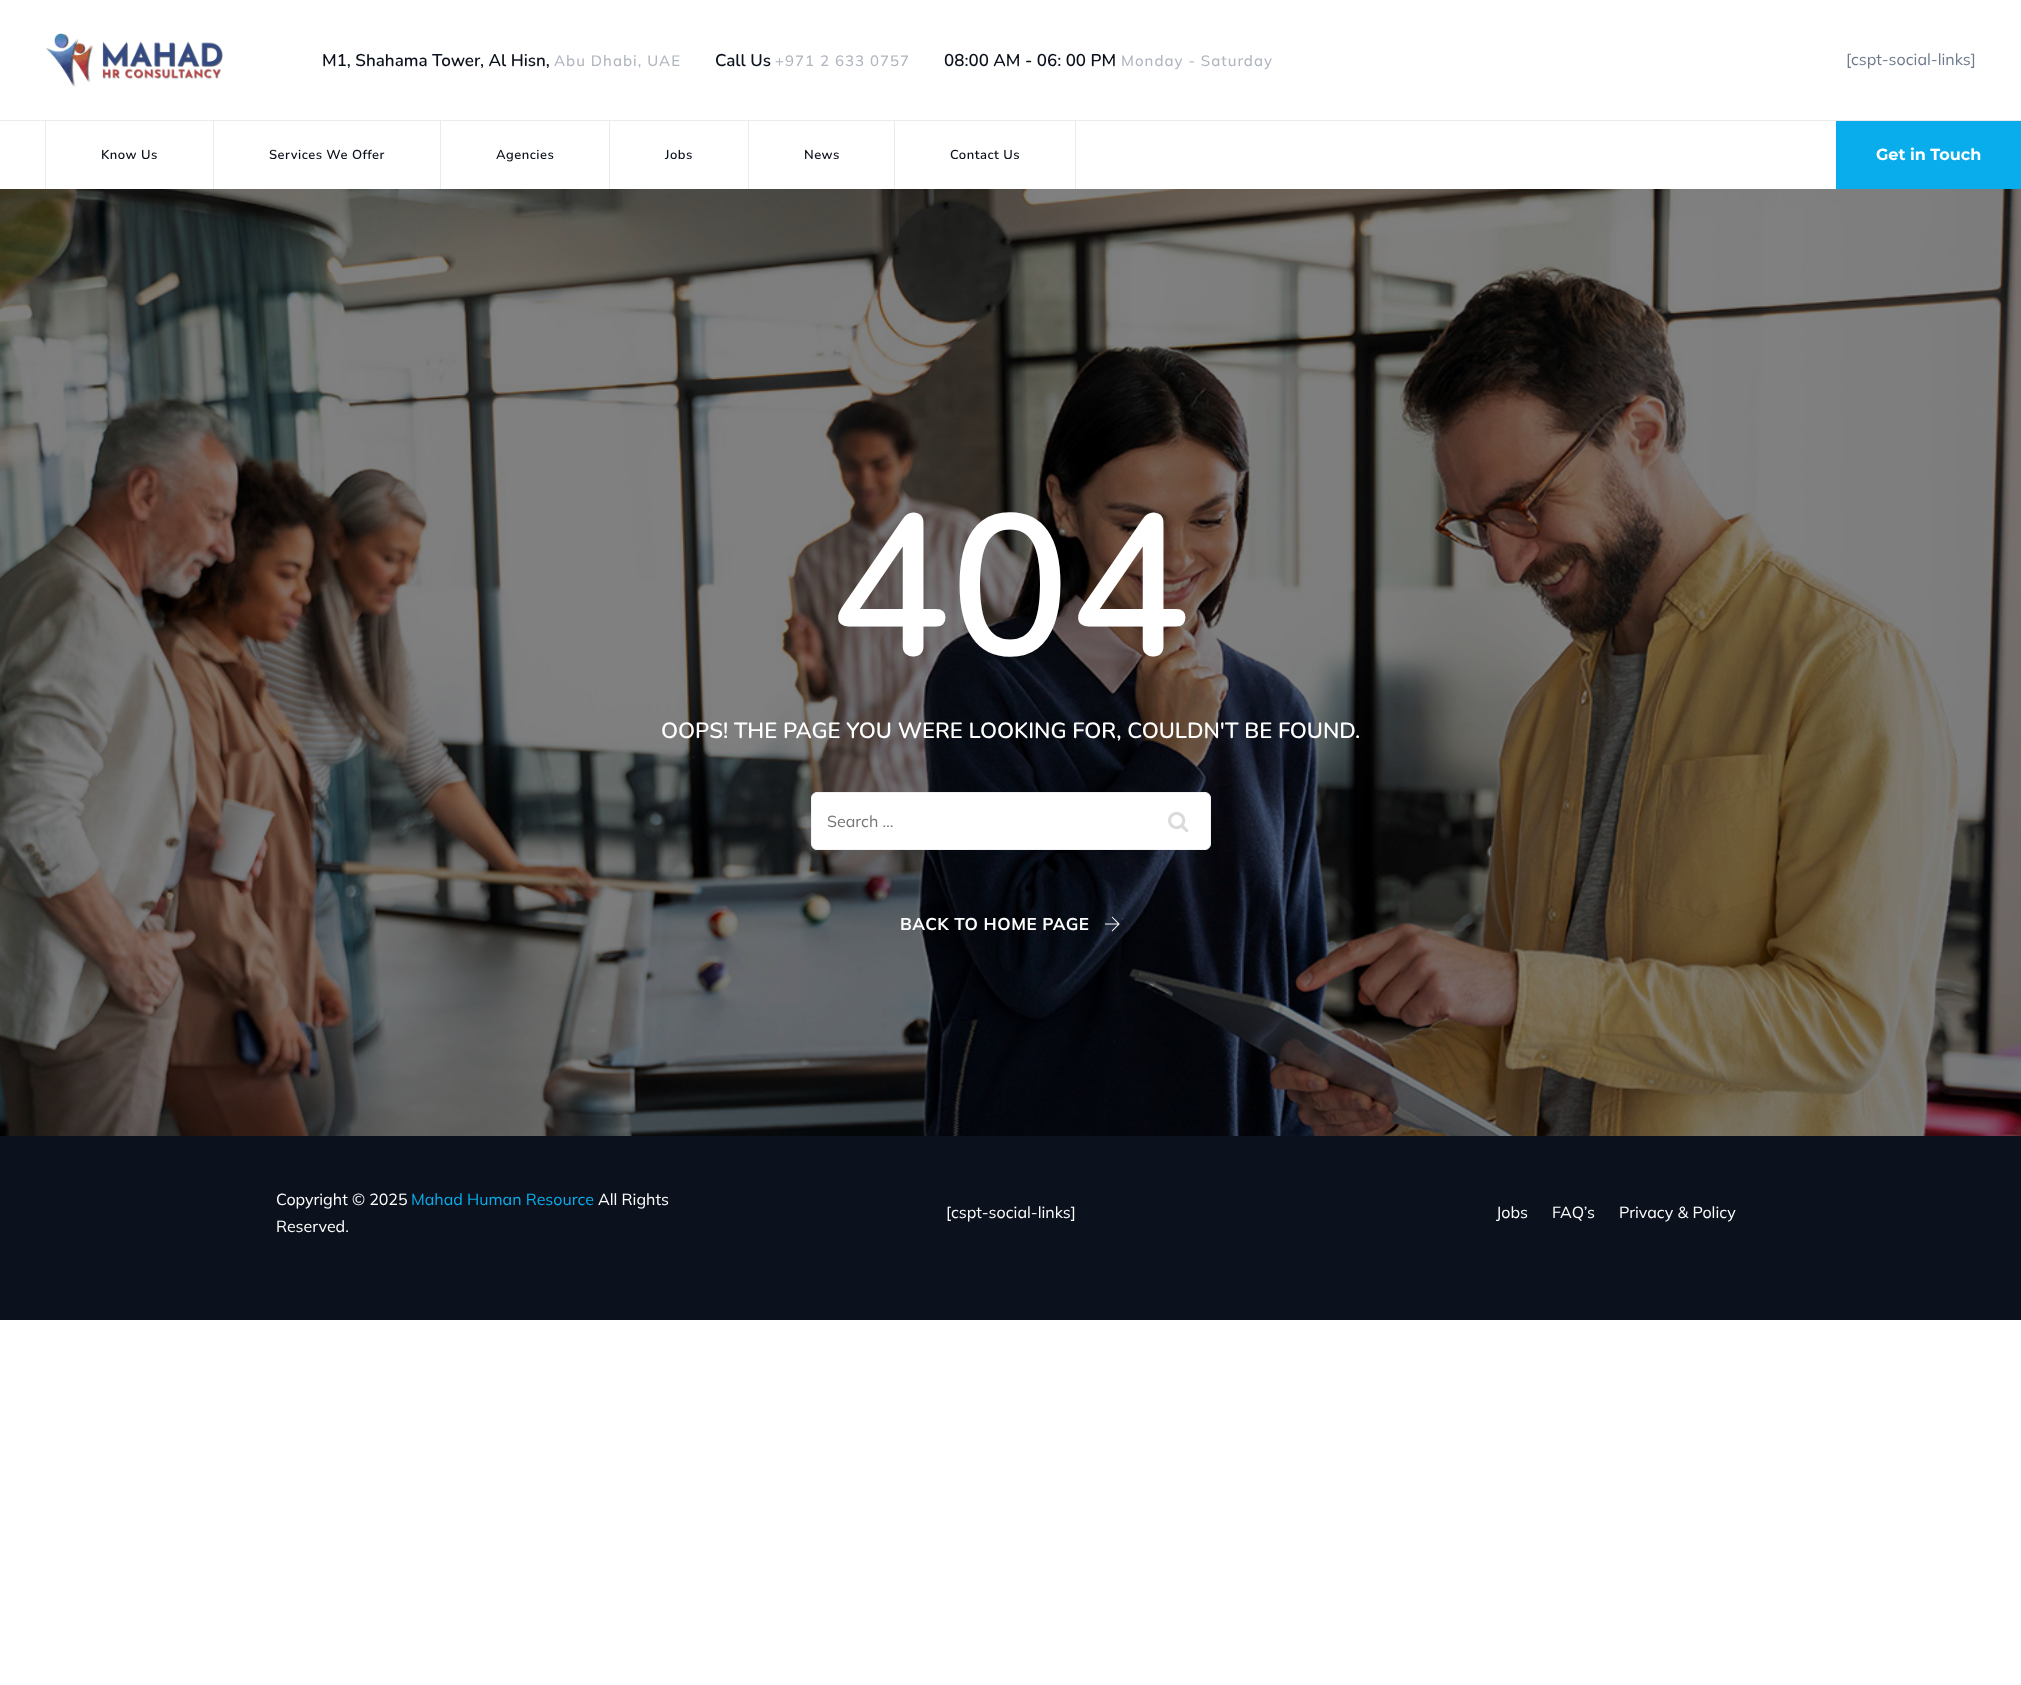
(async () => {
    const canvas = document.querySelector("canvas");
    canvas.width = 2021;
    canvas.height = 1685;
    const context = canvas.getContext("2d");
    context.miterLimit = 4;
    context.fontKerning = "normal";
    function write(s, x, y, font, color) {
        context.font = font;
        context.fillStyle = color;
        context.fillText(s, x, y);
    }
    function block(x, y, w, h, color) {
        context.fillStyle = color;
        context.fillRect(x, y, w, h);
    }
    async function photo(src, x, y, w, h) {
        const img = new Image();
        img.src = src;
        await img.decode();
        context.drawImage(img, x, y, w, h);
    }

    block(0, 0, 2021, 1685, "rgb(255, 255, 255)");
    block(0, 120, 2021, 1, "rgb(235, 235, 235)");
    await photo("media/1.png", 45, 33, 178, 54);
    write("M1, Shahama Tower, Al Hisn,", 322, 66, "200 17px Nunito", "rgb(12, 18, 29)");
    context.letterSpacing = "1px";
    write("Abu Dhabi, UAE", 554, 66, "500 15px Mulish", "rgb(176, 182, 191)");
    context.letterSpacing = "0px";
    write("Call Us", 715, 66, "200 17px Nunito", "rgb(12, 18, 29)");
    context.letterSpacing = "1px";
    write("+971 2 633 0757", 775, 66, "500 15px Mulish", "rgb(176, 182, 191)");
    context.letterSpacing = "0px";
    write("08:00 AM - 06: 00 PM", 944, 66, "200 17px Nunito", "rgb(12, 18, 29)");
    context.letterSpacing = "1px";
    write("Monday - Saturday", 1121, 66, "500 15px Mulish", "rgb(176, 182, 191)");
    context.letterSpacing = "0px";
    write("[cspt-social-links]", 1846, 65, "16px Mulish", "rgb(109, 122, 140)");
    block(213, 121, 1, 68, "rgb(235, 235, 235)");
    block(45, 121, 1, 68, "rgb(235, 235, 235)");
    context.letterSpacing = "0.5px";
    write("Know Us", 101, 159, "200 13px Nunito", "rgb(12, 18, 29)");
    block(440, 121, 1, 68, "rgb(235, 235, 235)");
    write("Services We Offer", 269, 159, "200 13px Nunito", "rgb(12, 18, 29)");
    block(609, 121, 1, 68, "rgb(235, 235, 235)");
    write("Agencies", 496, 159, "200 13px Nunito", "rgb(12, 18, 29)");
    block(748, 121, 1, 68, "rgb(235, 235, 235)");
    write("Jobs", 665, 159, "200 13px Nunito", "rgb(12, 18, 29)");
    block(894, 121, 1, 68, "rgb(235, 235, 235)");
    write("News", 804, 159, "200 13px Nunito", "rgb(12, 18, 29)");
    block(1075, 121, 1, 68, "rgb(235, 235, 235)");
    write("Contact Us", 950, 159, "200 13px Nunito", "rgb(12, 18, 29)");
    block(1836, 121, 185, 68, "rgb(10, 173, 235)");
    context.letterSpacing = "0px";
    write("Get in Touch", 1876, 160, "bold 16px Montserrat", "rgb(255, 255, 255)");
    await photo("media/2.png", 0, 189, 2021, 947);
    write("404", 830, 655, "200 200px Nunito", "rgb(255, 255, 255)");
    write("OOPS! THE PAGE YOU WERE LOOKING FOR, COULDN'T BE FOUND.", 661, 738, "200 22px Nunito", "rgb(255, 255, 255)");
    context.beginPath();
    context.roundRect(811.5, 792.5, 399, 57, 5.5);
    context.fill();
    context.strokeStyle = "rgb(242, 243, 244)";
    context.stroke();
    write("Search …", 827, 827, "16px Mulish", "rgb(117, 117, 117)");
    await photo("media/3.png", 1168, 811, 21, 22);
    context.letterSpacing = "0.5px";
    write("BACK TO HOME PAGE", 900, 930, "bold 17px Mulish", "rgb(255, 255, 255)");
    await photo("media/4.png", 1105, 916, 15, 16);
    block(0, 1136, 2021, 184, "rgb(12, 18, 29)");
    context.letterSpacing = "0px";
    write("Copyright © 2025", 276, 1205, "16px Mulish", "rgb(255, 255, 255)");
    write("Mahad Human Resource", 411, 1205, "16px Mulish", "rgb(10, 173, 235)");
    write("All Rights", 598, 1205, "16px Mulish", "rgb(255, 255, 255)");
    write("Reserved.", 276, 1232, "16px Mulish", "rgb(255, 255, 255)");
    write("[cspt-social-links]", 946, 1218, "16px Mulish", "rgb(255, 255, 255)");
    write("Jobs", 1496, 1218, "16px Mulish", "rgb(255, 255, 255)");
    write("FAQ’s", 1552, 1218, "16px Mulish", "rgb(255, 255, 255)");
    write("Privacy & Policy", 1619, 1218, "16px Mulish", "rgb(255, 255, 255)");
})();
